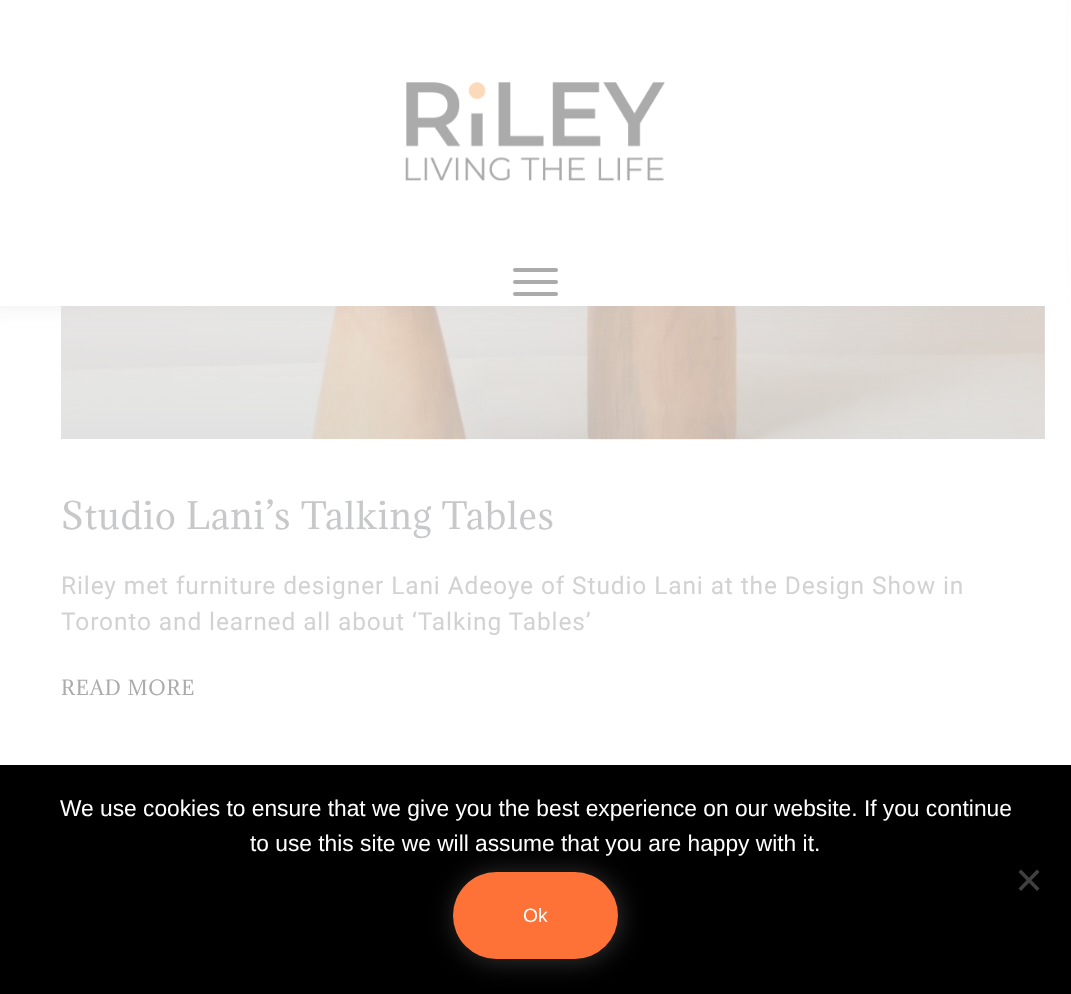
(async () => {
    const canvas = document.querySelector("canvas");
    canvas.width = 1071;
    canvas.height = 994;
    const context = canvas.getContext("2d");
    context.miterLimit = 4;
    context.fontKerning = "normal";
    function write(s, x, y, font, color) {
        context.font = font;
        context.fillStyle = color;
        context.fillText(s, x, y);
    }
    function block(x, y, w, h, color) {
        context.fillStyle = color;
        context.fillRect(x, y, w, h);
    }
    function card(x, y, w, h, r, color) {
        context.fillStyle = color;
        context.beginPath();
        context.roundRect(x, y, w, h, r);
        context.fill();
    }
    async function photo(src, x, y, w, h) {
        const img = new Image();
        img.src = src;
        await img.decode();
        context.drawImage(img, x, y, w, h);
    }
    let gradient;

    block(0, 0, 1071, 994, "rgb(255, 255, 255)");
    await photo("media/2.png", 61, 306, 984, 134);
    gradient = context.createLinearGradient(553, 439, 553, -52);
    gradient.addColorStop(0, "rgba(171, 171, 171, 0.35)");
    gradient.addColorStop(0.75, "rgba(171, 171, 171, 0)");
    context.fillStyle = gradient;
    context.fillRect(61, 306, 984, 133);
    context.fillStyle = "rgb(199, 199, 199)";
    context.filter = "blur(17.5px)";
    context.beginPath();
    context.rect(-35, -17, 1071, 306);
    context.fill();
    context.filter = "none";
    block(0, 0, 1066, 306, "rgb(255, 255, 255)");
    await photo("media/1.png", 405, 82, 260, 99);
    card(513, 268, 45, 4, 2, "rgb(171, 171, 171)");
    card(513, 280, 45, 4, 2, "rgb(171, 171, 171)");
    card(513, 292, 45, 4, 2, "rgb(171, 171, 171)");
    context.letterSpacing = "0.88px";
    write("Studio Lani’s Talking Tables", 61, 529, "35px Adamina", "rgb(199, 200, 202)");
    write("Riley met furniture designer Lani Adeoye of Studio Lani at the Design Show in", 61, 594, "24.5px Roboto", "rgb(210, 210, 210)");
    write("Toronto and learned all about ‘Talking Tables’", 61, 630, "24.5px Roboto", "rgb(210, 210, 210)");
    write("READ MORE", 61, 695, "19.25px Adamina", "rgb(171, 171, 171)");
    block(0, 765, 1071, 229, "rgb(0, 0, 0)");
    context.letterSpacing = "0px";
    write("We use cookies to ensure that we give you the best experience on our website. If you continue", 60, 816, "22.75px Liberation Sans", "rgb(255, 255, 255)");
    write("to use this site we will assume that you are happy with it.", 250, 851, "22.75px Liberation Sans", "rgb(255, 255, 255)");
    context.fillStyle = "rgb(64, 64, 64)";
    context.beginPath();
    context.moveTo(1037, 869.5);
    context.lineTo(1039.5, 872);
    context.lineTo(1021, 891);
    context.lineTo(1018.5, 888.5);
    context.closePath();
    context.fill();
    context.beginPath();
    context.moveTo(1018.5, 872);
    context.lineTo(1021, 869.5);
    context.lineTo(1039.5, 888.5);
    context.lineTo(1037, 891);
    context.closePath();
    context.fill();
    context.fillStyle = "rgba(111, 111, 111, 0.45)";
    context.filter = "blur(13px)";
    context.beginPath();
    context.roundRect(455, 873, 165, 88, 44);
    context.fill();
    context.filter = "none";
    card(453, 872, 165, 87, 43.5, "rgb(254, 114, 55)");
    write("Ok", 523, 922, "19.25px Liberation Sans", "rgb(255, 255, 255)");
})();
